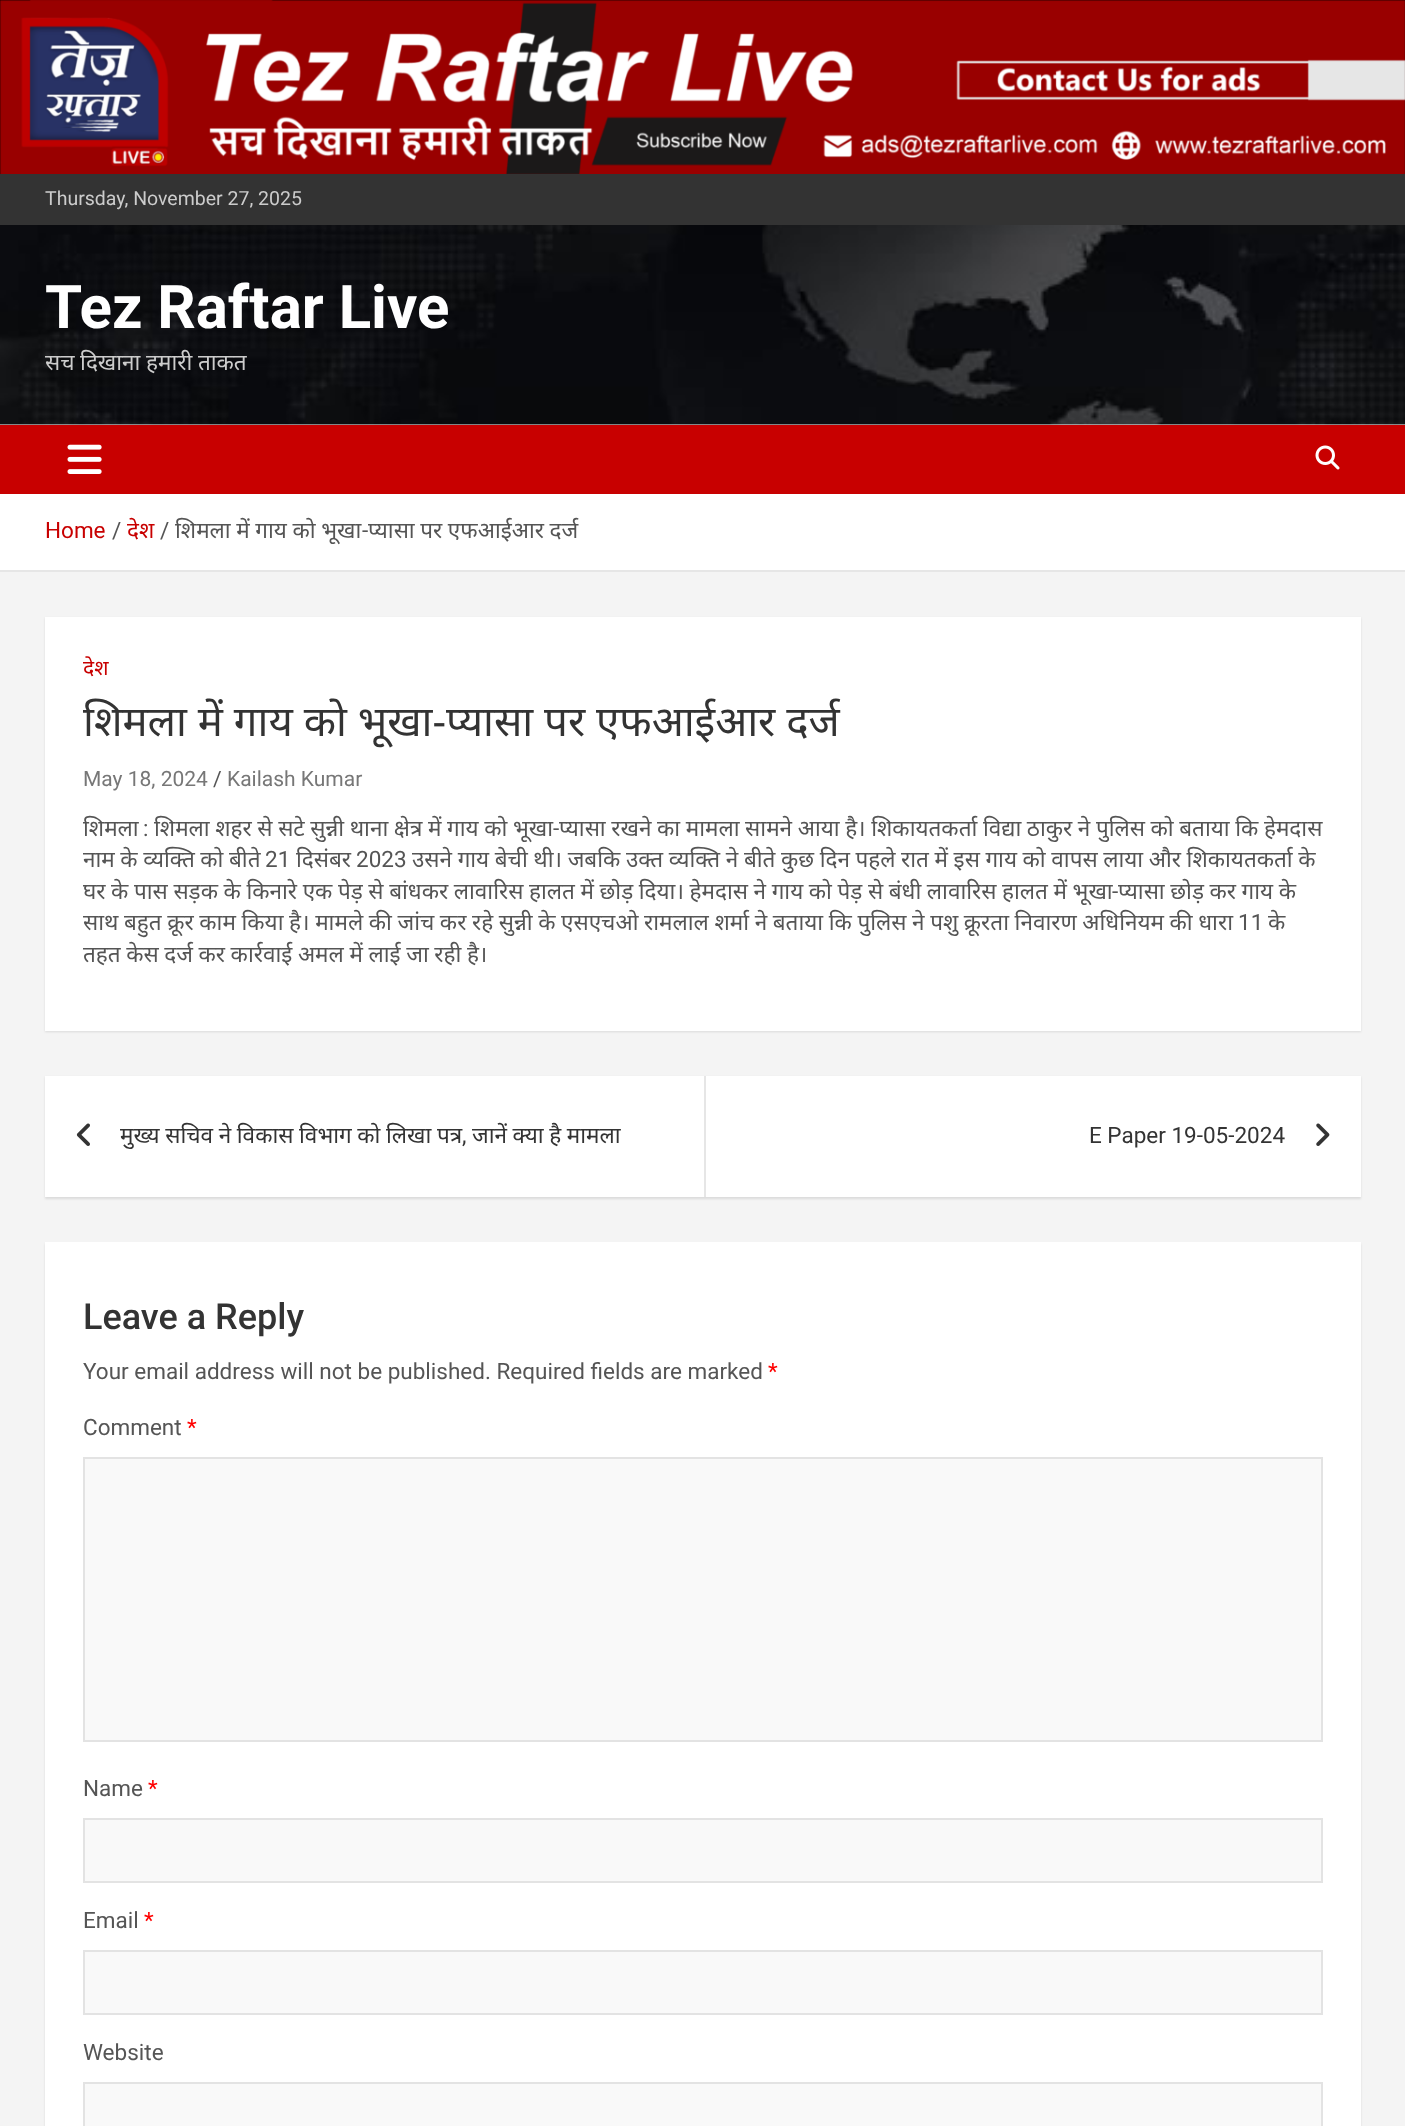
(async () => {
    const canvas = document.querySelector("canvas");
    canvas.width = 1405;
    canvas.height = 2126;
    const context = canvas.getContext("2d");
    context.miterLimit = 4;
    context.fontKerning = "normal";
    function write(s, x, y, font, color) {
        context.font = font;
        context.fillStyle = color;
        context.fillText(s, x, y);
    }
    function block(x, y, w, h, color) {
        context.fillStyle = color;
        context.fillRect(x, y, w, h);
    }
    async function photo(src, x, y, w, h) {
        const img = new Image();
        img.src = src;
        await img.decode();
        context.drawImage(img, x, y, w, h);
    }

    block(0, 0, 1405, 2126, "rgb(244, 244, 244)");
    block(0, 0, 1405, 174, "rgb(0, 0, 0)");
    await photo("media/1.png", 0, 0, 1405, 174);
    block(0, 174, 1405, 51, "rgb(51, 51, 51)");
    write("Thursday, November 27, 2025", 45, 205, "19.5px Roboto", "rgb(204, 204, 204)");
    block(0, 424, 1405, 1, "rgb(255, 255, 255)");
    await photo("media/2.png", 0, 225, 1405, 200);
    write("Tez Raftar Live", 45, 328, "bold 60px Roboto", "rgb(255, 255, 255)");
    context.wordSpacing = "-0.25px";
    write("सच दिखाना हमारी ताकत", 45, 370, "22.5px Noto Sans", "rgb(204, 204, 204)");
    block(0, 425, 1405, 69, "rgb(200, 0, 0)");
    await photo("media/3.png", 67, 444, 35, 30);
    await photo("media/4.png", 1315, 445, 25, 25);
    block(0, 494, 1405, 76, "rgb(255, 255, 255)");
    block(0, 570, 1405, 2, "rgb(230, 230, 230)");
    context.wordSpacing = "0px";
    write("Home", 45, 538, "22.5px Roboto", "rgb(200, 0, 0)");
    write("/", 112, 538, "22.5px Roboto", "rgb(85, 85, 85)");
    write("देश", 127, 538, "22.5px Noto Sans", "rgb(200, 0, 0)");
    write("/", 160, 538, "22.5px Roboto", "rgb(85, 85, 85)");
    context.wordSpacing = "-0.25px";
    write("शिमला में गाय काे भूखा", 175, 538, "22.5px Noto Sans", "rgb(85, 85, 85)");
    context.wordSpacing = "0px";
    write("-", 362, 538, "22.5px Roboto", "rgb(85, 85, 85)");
    context.wordSpacing = "-0.25px";
    write("प्यासा पर एफआईआर दर्ज", 368, 538, "22.5px Noto Sans", "rgb(85, 85, 85)");
    context.fillStyle = "rgba(0, 0, 0, 0.1)";
    context.filter = "blur(1px)";
    context.beginPath();
    context.rect(45, 618, 1316, 414);
    context.fill();
    context.filter = "none";
    block(45, 617, 1316, 414, "rgb(255, 255, 255)");
    context.wordSpacing = "0px";
    write("देश", 83, 675, "21px Noto Sans", "rgb(200, 0, 0)");
    write("शिमला में गाय काे भूखा-प्यासा पर एफआईआर दर्ज", 83, 736, "42px Noto Sans", "rgb(51, 51, 51)");
    write("May 18, 2024", 83, 786, "21px Roboto", "rgb(119, 119, 119)");
    write("/", 213, 786, "21px Roboto", "rgb(85, 85, 85)");
    write("Kailash Kumar", 227, 786, "21px Roboto", "rgb(119, 119, 119)");
    write("शिमला", 83, 836, "22.5px Noto Sans", "rgb(85, 85, 85)");
    write(":", 143, 836, "22.5px Roboto", "rgb(85, 85, 85)");
    context.wordSpacing = "-0.25px";
    write("शिमला शहर से सटे सुन्नी थाना क्षेत्र में गाय काे भूखा", 154, 836, "22.5px Noto Sans", "rgb(85, 85, 85)");
    context.wordSpacing = "0px";
    write("-", 553, 836, "22.5px Roboto", "rgb(85, 85, 85)");
    context.wordSpacing = "-0.25px";
    write("प्यासा रखने का मामला सामने आया है। शिकायतकर्ता विद्या ठाकुर ने पुलिस काे बताया कि हेमदास", 559, 836, "22.5px Noto Sans", "rgb(85, 85, 85)");
    write("नाम के व्यक्ति काे बीते", 83, 867, "22.5px Noto Sans", "rgb(85, 85, 85)");
    context.wordSpacing = "0px";
    write("21", 265, 867, "22.5px Roboto", "rgb(85, 85, 85)");
    write("दिसंबर", 296, 867, "22.5px Noto Sans", "rgb(85, 85, 85)");
    write("2023", 356, 867, "22.5px Roboto", "rgb(85, 85, 85)");
    context.wordSpacing = "-0.25px";
    write("उसने गाय बेची थी। जबकि उक्त व्यक्ति ने बीते कुछ दिन पहले रात में इस गाय को वापस लाया और शिकायतकर्ता के", 412, 867, "22.5px Noto Sans", "rgb(85, 85, 85)");
    write("घर के पास सड़क के किनारे एक पेड़ से बांधकर लावारिस हालत में छोड़ दिया। हेमदास ने गाय को पेड़ से बंधी लावारिस हालत में भूखा", 83, 899, "22.5px Noto Sans", "rgb(85, 85, 85)");
    context.wordSpacing = "0px";
    write("-", 1112, 899, "22.5px Roboto", "rgb(85, 85, 85)");
    context.wordSpacing = "-0.25px";
    write("प्यासा छोड़ कर गाय के", 1118, 899, "22.5px Noto Sans", "rgb(85, 85, 85)");
    write("साथ बहुत क्रूर काम किया है। मामले की जांच कर रहे सुन्नी के एसएचओ रामलाल शर्मा ने बताया कि पुलिस ने पशु क्रूरता निवारण अधिनियम की धारा", 83, 930, "22.5px Noto Sans", "rgb(85, 85, 85)");
    context.wordSpacing = "0px";
    write("11", 1238, 930, "22.5px Roboto", "rgb(85, 85, 85)");
    write("के", 1268, 930, "22.5px Noto Sans", "rgb(85, 85, 85)");
    context.wordSpacing = "-0.25px";
    write("तहत केस दर्ज कर कार्रवाई अमल में लाई जा रही है।", 83, 962, "22.5px Noto Sans", "rgb(85, 85, 85)");
    context.fillStyle = "rgba(0, 0, 0, 0.1)";
    context.filter = "blur(1px)";
    context.beginPath();
    context.rect(45, 1077, 1316, 122);
    context.fill();
    context.filter = "none";
    block(45, 1076, 1316, 121, "rgb(255, 255, 255)");
    await photo("media/5.png", 76, 1123, 14, 23);
    write("मुख्य सचिव ने विकास विभाग को लिखा पत्र", 120, 1143, "22.5px Noto Sans", "rgb(51, 51, 51)");
    context.wordSpacing = "0px";
    write(",", 462, 1143, "22.5px Roboto", "rgb(51, 51, 51)");
    context.wordSpacing = "-0.25px";
    write("जानें क्या है मामला", 472, 1143, "22.5px Noto Sans", "rgb(51, 51, 51)");
    block(704, 1076, 2, 121, "rgb(230, 230, 230)");
    context.wordSpacing = "0px";
    write("E Paper 19-05-2024", 1089, 1143, "22.5px Roboto", "rgb(51, 51, 51)");
    await photo("media/6.png", 1316, 1123, 14, 23);
    context.fillStyle = "rgba(0, 0, 0, 0.1)";
    context.filter = "blur(1px)";
    context.beginPath();
    context.rect(45, 1244, 1316, 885);
    context.fill();
    context.filter = "none";
    block(45, 1242, 1316, 884, "rgb(255, 255, 255)");
    write("Leave a Reply", 83, 1329, "500 36px Roboto", "rgb(51, 51, 51)");
    write("Your email address will not be published. Required fields are marked", 83, 1379, "22.5px Roboto", "rgb(85, 85, 85)");
    write("*", 768, 1379, "22.5px Roboto", "rgb(255, 0, 0)");
    write("Comment", 83, 1435, "22.5px Roboto", "rgb(85, 85, 85)");
    write("*", 187, 1435, "22.5px Roboto", "rgb(255, 0, 0)");
    context.fillStyle = "rgb(249, 249, 249)";
    context.beginPath();
    context.rect(84, 1458, 1238, 283);
    context.fill();
    context.strokeStyle = "rgb(227, 227, 227)";
    context.lineWidth = 2;
    context.stroke();
    write("Name", 83, 1796, "22.5px Roboto", "rgb(85, 85, 85)");
    write("*", 148, 1796, "22.5px Roboto", "rgb(255, 0, 0)");
    context.fillStyle = "rgb(249, 249, 249)";
    context.beginPath();
    context.rect(84, 1819, 1238, 63);
    context.fill();
    context.stroke();
    write("Email", 83, 1928, "22.5px Roboto", "rgb(85, 85, 85)");
    write("*", 144, 1928, "22.5px Roboto", "rgb(255, 0, 0)");
    context.fillStyle = "rgb(249, 249, 249)";
    context.beginPath();
    context.rect(84, 1951, 1238, 63);
    context.fill();
    context.stroke();
    write("Website", 83, 2060, "22.5px Roboto", "rgb(85, 85, 85)");
    context.fillStyle = "rgb(249, 249, 249)";
    context.beginPath();
    context.rect(84, 2083, 1238, 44);
    context.fill();
    context.stroke();
})();
